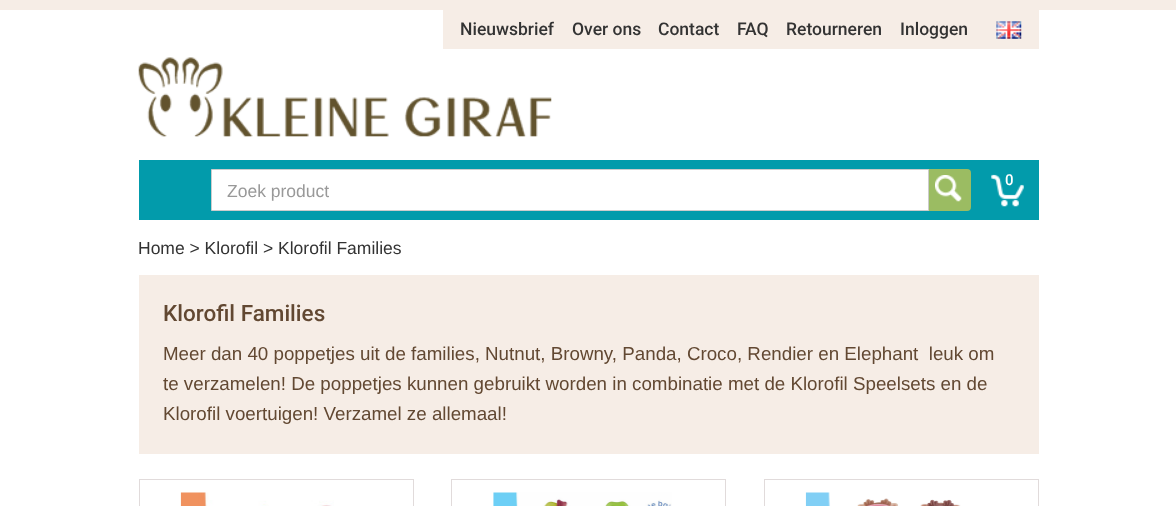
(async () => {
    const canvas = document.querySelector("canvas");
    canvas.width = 1176;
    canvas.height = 506;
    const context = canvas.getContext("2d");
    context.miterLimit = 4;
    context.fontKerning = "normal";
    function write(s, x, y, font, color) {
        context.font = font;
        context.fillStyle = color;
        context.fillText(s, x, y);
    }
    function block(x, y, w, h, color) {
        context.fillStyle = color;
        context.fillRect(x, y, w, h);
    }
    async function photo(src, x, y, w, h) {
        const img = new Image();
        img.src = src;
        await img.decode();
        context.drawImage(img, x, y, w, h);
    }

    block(0, 0, 1176, 506, "rgb(255, 255, 255)");
    block(0, 0, 1176, 10, "rgb(246, 237, 230)");
    block(443, 10, 596, 39, "rgb(246, 237, 230)");
    write("Nieuwsbrief", 460, 35, "500 17.5px Roboto", "rgb(51, 51, 51)");
    write("Over ons", 572, 35, "500 17.5px Roboto", "rgb(51, 51, 51)");
    write("Contact", 658, 35, "500 17.5px Roboto", "rgb(51, 51, 51)");
    write("FAQ", 737, 35, "500 17.5px Roboto", "rgb(51, 51, 51)");
    write("Retourneren", 786, 35, "500 17.5px Roboto", "rgb(51, 51, 51)");
    write("Inloggen", 900, 35, "500 17.5px Roboto", "rgb(51, 51, 51)");
    await photo("media/1.png", 996, 21, 26, 18);
    await photo("media/2.png", 138, 57, 414, 80);
    block(139, 160, 900, 60, "rgb(2, 155, 171)");
    await photo("media/3.png", 991, 174, 33, 33);
    write("0", 1005, 185, "500 15px Roboto", "rgb(255, 255, 255)");
    context.fillStyle = "rgb(155, 188, 98)";
    context.beginPath();
    context.roundRect(928, 169, 43, 42, [0, 4, 4, 0]);
    context.fill();
    context.fillStyle = "rgb(255, 255, 255)";
    context.beginPath();
    context.rect(211.5, 169.5, 717, 41);
    context.fill();
    context.strokeStyle = "rgb(204, 204, 204)";
    context.stroke();
    write("Zoek product", 227, 197, "17.5px Liberation Sans", "rgb(153, 153, 153)");
    await photo("media/4.png", 935, 175, 27, 27);
    write("Home > Klorofil > Klorofil Families", 138, 254, "17.5px Liberation Sans", "rgb(51, 51, 51)");
    block(139, 275, 900, 179, "rgb(246, 237, 230)");
    write("Klorofil Families", 163, 321, "500 22.5px Roboto", "rgb(98, 72, 50)");
    write("Meer dan 40 poppetjes uit de families, Nutnut, Browny, Panda, Croco, Rendier en Elephant  leuk om", 163, 360, "18.75px Liberation Sans", "rgb(98, 72, 50)");
    write("te verzamelen! De poppetjes kunnen gebruikt worden in combinatie met de Klorofil Speelsets en de", 163, 390, "18.75px Liberation Sans", "rgb(98, 72, 50)");
    write("Klorofil voertuigen! Verzamel ze allemaal!", 163, 420, "18.75px Liberation Sans", "rgb(98, 72, 50)");
    context.strokeStyle = "rgb(225, 219, 219)";
    context.strokeRect(139.5, 479.5, 274, 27);
    await photo("media/5.png", 180, 492, 154, 14);
    context.strokeRect(451.5, 479.5, 274, 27);
    await photo("media/6.png", 493, 492, 179, 14);
    context.strokeRect(764.5, 479.5, 274, 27);
    await photo("media/7.png", 805, 492, 156, 14);
})();
